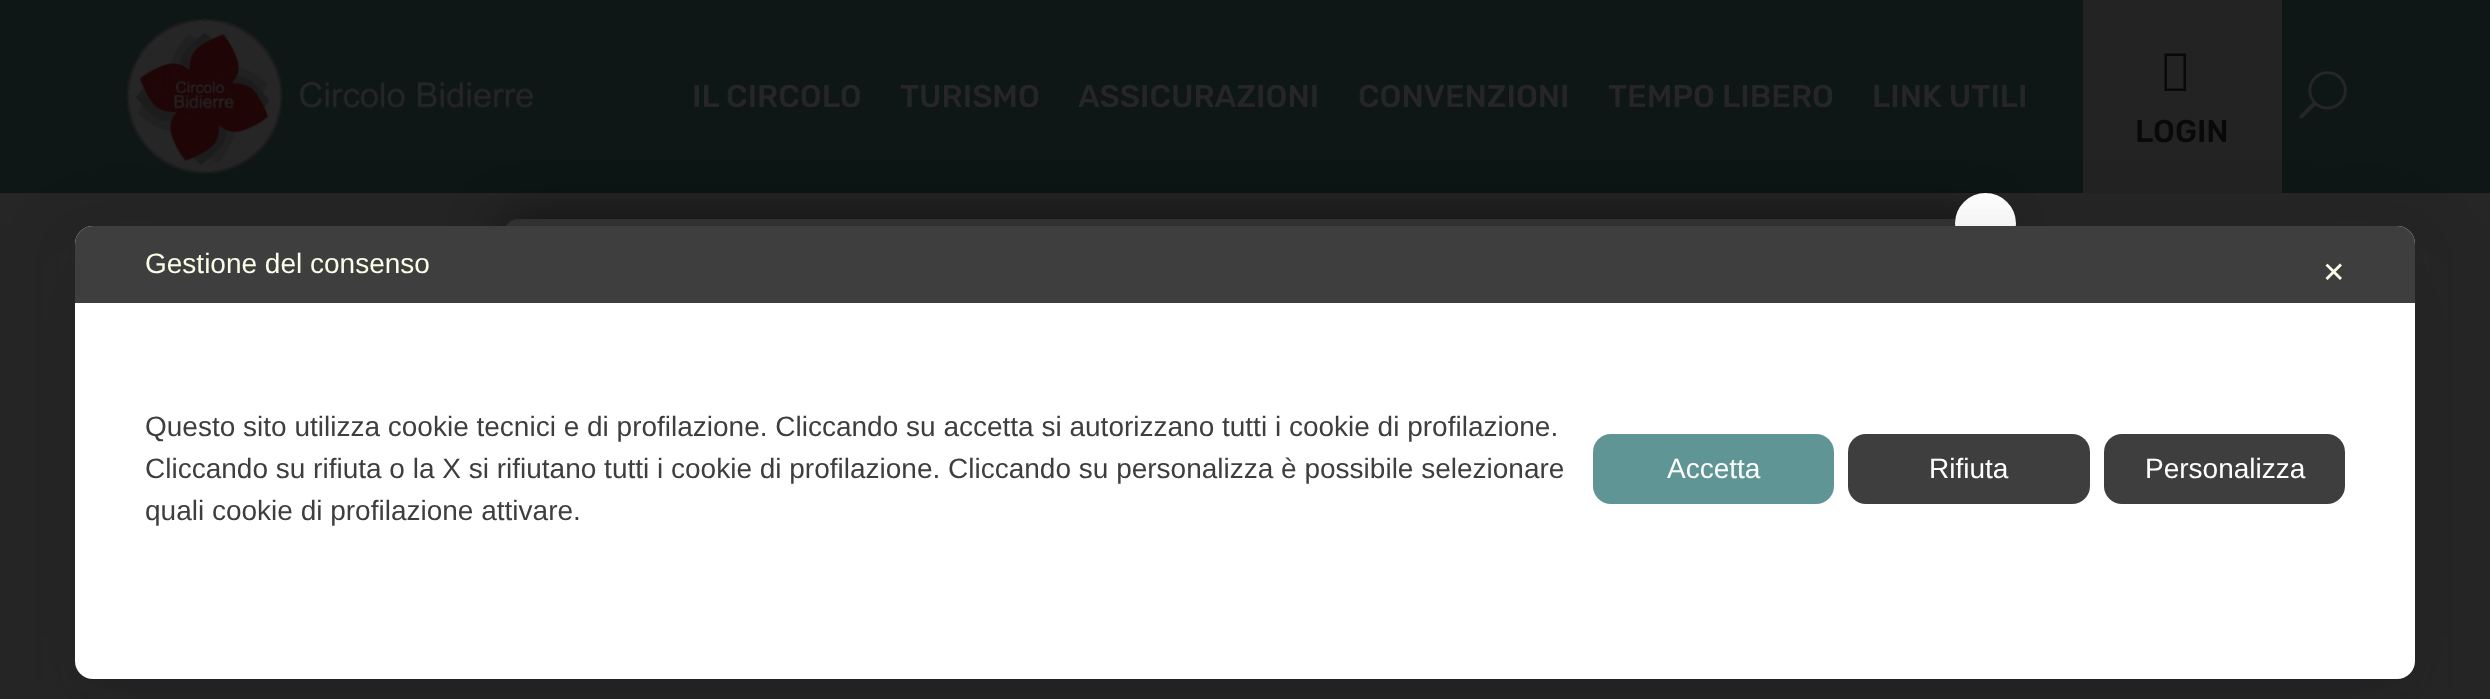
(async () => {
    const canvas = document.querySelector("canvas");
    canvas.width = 2490;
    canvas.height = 699;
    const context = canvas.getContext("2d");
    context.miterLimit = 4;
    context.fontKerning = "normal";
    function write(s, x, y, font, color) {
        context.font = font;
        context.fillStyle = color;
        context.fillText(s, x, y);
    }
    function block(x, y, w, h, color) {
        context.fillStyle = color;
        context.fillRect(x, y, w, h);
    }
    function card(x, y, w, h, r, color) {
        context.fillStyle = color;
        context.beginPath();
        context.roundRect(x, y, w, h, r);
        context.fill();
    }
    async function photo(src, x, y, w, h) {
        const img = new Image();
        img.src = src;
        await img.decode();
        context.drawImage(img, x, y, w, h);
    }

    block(0, 0, 2490, 699, "rgb(38, 38, 38)");
    block(0, 0, 2490, 193, "rgb(14, 22, 22)");
    await photo("media/1.png", 126, 18, 407, 156);
    write("IL CIRCOLO", 692, 107, "300 31.5px Rubik", "rgb(38, 38, 38)");
    write("TURISMO", 900, 107, "300 31.5px Rubik", "rgb(38, 38, 38)");
    write("ASSICURAZIONI", 1078, 107, "300 31.5px Rubik", "rgb(38, 38, 38)");
    write("CONVENZIONI", 1358, 107, "300 31.5px Rubik", "rgb(38, 38, 38)");
    write("TEMPO LIBERO", 1608, 107, "300 31.5px Rubik", "rgb(38, 38, 38)");
    write("LINK UTILI", 1872, 107, "300 31.5px Rubik", "rgb(38, 38, 38)");
    block(2083, 0, 199, 193, "rgb(35, 35, 35)");
    context.fillStyle = "rgb(9, 9, 9)";
    context.beginPath();
    context.moveTo(2164.5, 91);
    context.lineTo(2164.5, 53.5);
    context.lineTo(2186, 53.5);
    context.lineTo(2186, 91);
    context.closePath();
    context.moveTo(2167, 88.5);
    context.lineTo(2183.5, 88.5);
    context.lineTo(2183.5, 56);
    context.lineTo(2167, 56);
    context.closePath();
    context.fill();
    write("LOGIN", 2135, 142, "300 31.5px Rubik", "rgb(9, 9, 9)");
    await photo("media/2.png", 2299, 71, 48, 48);
    context.fillStyle = "rgba(0, 0, 0, 0.5)";
    context.filter = "blur(26px)";
    context.beginPath();
    context.roundRect(502, 219, 1488, 262, 18);
    context.fill();
    context.filter = "none";
    await photo("media/3.png", 505, 219, 1451, 7);
    context.fillStyle = "rgb(255, 255, 255)";
    context.beginPath();
    context.arc(1985.5, 223.5, 30.5, 0, Math.PI * 2);
    context.fill();
    context.fillStyle = "rgba(17, 17, 26, 0.1)";
    context.filter = "blur(49px)";
    context.beginPath();
    context.roundRect(75, 254, 2340, 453, 18);
    context.fill();
    context.filter = "none";
    context.filter = "blur(21px)";
    context.beginPath();
    context.roundRect(75, 240, 2340, 453, 18);
    context.fill();
    context.filter = "none";
    card(75, 226, 2340, 453, 18, "rgb(255, 255, 255)");
    context.fillStyle = "rgb(62, 62, 62)";
    context.beginPath();
    context.roundRect(75, 226, 2340, 77, [18, 18, 0, 0]);
    context.fill();
    write("Gestione del consenso", 145, 273, "28px Liberation Sans", "rgb(250, 253, 231)");
    write("✕", 2322, 282, "28px DejaVu Sans", "rgb(250, 253, 231)");
    write("Questo sito utilizza cookie tecnici e di profilazione. Cliccando su accetta si autorizzano tutti i cookie di profilazione.", 145, 436, "28px Liberation Sans", "rgb(62, 62, 62)");
    write("Cliccando su rifiuta o la X si rifiutano tutti i cookie di profilazione. Cliccando su personalizza è possibile selezionare", 145, 478, "28px Liberation Sans", "rgb(62, 62, 62)");
    write("quali cookie di profilazione attivare.", 145, 520, "28px Liberation Sans", "rgb(62, 62, 62)");
    card(1593, 434, 241, 70, 18, "rgb(95, 149, 149)");
    write("Accetta", 1667, 478, "28px Liberation Sans", "rgb(255, 255, 255)");
    card(1848, 434, 242, 70, 18, "rgb(62, 62, 62)");
    write("Rifiuta", 1929, 478, "28px Liberation Sans", "rgb(255, 255, 255)");
    card(2104, 434, 241, 70, 18, "rgb(62, 62, 62)");
    write("Personalizza", 2145, 478, "28px Liberation Sans", "rgb(255, 255, 255)");
})();
